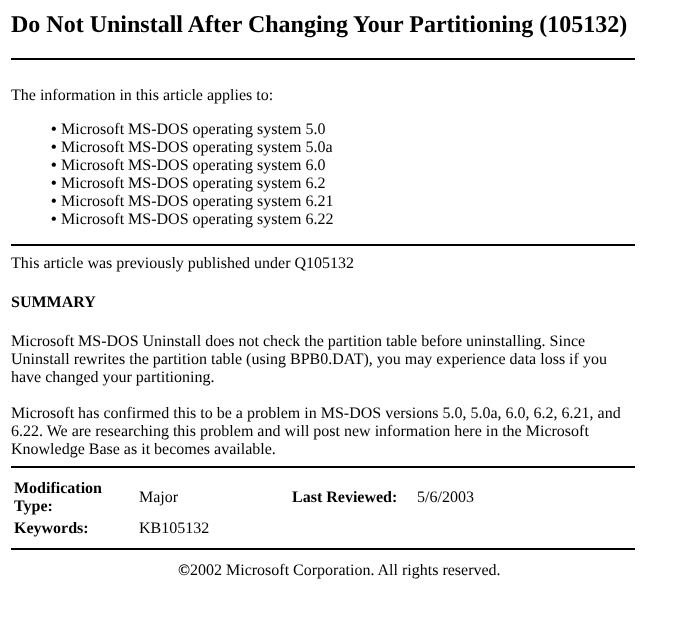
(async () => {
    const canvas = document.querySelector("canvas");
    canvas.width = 679;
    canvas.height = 617;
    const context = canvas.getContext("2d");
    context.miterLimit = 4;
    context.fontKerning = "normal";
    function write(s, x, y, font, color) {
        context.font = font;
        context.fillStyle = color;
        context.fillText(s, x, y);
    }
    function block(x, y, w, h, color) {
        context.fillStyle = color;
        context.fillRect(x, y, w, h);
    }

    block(0, 0, 679, 617, "rgb(255, 255, 255)");
    write("Do Not Uninstall After Changing Your Partitioning (105132)", 11, 32, "bold 24px Liberation Serif", "rgb(0, 0, 0)");
    block(11, 58, 624, 2, "rgb(0, 0, 0)");
    write("The information in this article applies to:", 11, 100, "16px Liberation Serif", "rgb(0, 0, 0)");
    write("•", 51, 134, "bold 16px Liberation Serif", "rgb(0, 0, 0)");
    write("Microsoft MS-DOS operating system 5.0", 61, 134, "16px Liberation Serif", "rgb(0, 0, 0)");
    write("•", 51, 152, "bold 16px Liberation Serif", "rgb(0, 0, 0)");
    write("Microsoft MS-DOS operating system 5.0a", 61, 152, "16px Liberation Serif", "rgb(0, 0, 0)");
    write("•", 51, 170, "bold 16px Liberation Serif", "rgb(0, 0, 0)");
    write("Microsoft MS-DOS operating system 6.0", 61, 170, "16px Liberation Serif", "rgb(0, 0, 0)");
    write("•", 51, 188, "bold 16px Liberation Serif", "rgb(0, 0, 0)");
    write("Microsoft MS-DOS operating system 6.2", 61, 188, "16px Liberation Serif", "rgb(0, 0, 0)");
    write("•", 51, 206, "bold 16px Liberation Serif", "rgb(0, 0, 0)");
    write("Microsoft MS-DOS operating system 6.21", 61, 206, "16px Liberation Serif", "rgb(0, 0, 0)");
    write("•", 51, 224, "bold 16px Liberation Serif", "rgb(0, 0, 0)");
    write("Microsoft MS-DOS operating system 6.22", 61, 224, "16px Liberation Serif", "rgb(0, 0, 0)");
    block(11, 244, 624, 2, "rgb(0, 0, 0)");
    write("This article was previously published under Q105132", 11, 268, "16px Liberation Serif", "rgb(0, 0, 0)");
    write("SUMMARY", 11, 307, "bold 16px Liberation Serif", "rgb(0, 0, 0)");
    write("Microsoft MS-DOS Uninstall does not check the partition table before uninstalling. Since", 11, 346, "16px Liberation Serif", "rgb(0, 0, 0)");
    write("Uninstall rewrites the partition table (using BPB0.DAT), you may experience data loss if you", 11, 364, "16px Liberation Serif", "rgb(0, 0, 0)");
    write("have changed your partitioning.", 11, 382, "16px Liberation Serif", "rgb(0, 0, 0)");
    write("Microsoft has confirmed this to be a problem in MS-DOS versions 5.0, 5.0a, 6.0, 6.2, 6.21, and", 11, 418, "16px Liberation Serif", "rgb(0, 0, 0)");
    write("6.22. We are researching this problem and will post new information here in the Microsoft", 11, 436, "16px Liberation Serif", "rgb(0, 0, 0)");
    write("Knowledge Base as it becomes available.", 11, 454, "16px Liberation Serif", "rgb(0, 0, 0)");
    block(11, 466, 624, 2, "rgb(0, 0, 0)");
    write("Modification", 14, 493, "bold 16px Liberation Serif", "rgb(0, 0, 0)");
    write("Type:", 14, 511, "bold 16px Liberation Serif", "rgb(0, 0, 0)");
    write("Major", 139, 502, "16px Liberation Serif", "rgb(0, 0, 0)");
    write("Last Reviewed:", 292, 502, "bold 16px Liberation Serif", "rgb(0, 0, 0)");
    write("5/6/2003", 417, 502, "16px Liberation Serif", "rgb(0, 0, 0)");
    write("Keywords:", 14, 533, "bold 16px Liberation Serif", "rgb(0, 0, 0)");
    write("KB105132", 139, 533, "16px Liberation Serif", "rgb(0, 0, 0)");
    block(11, 548, 624, 2, "rgb(0, 0, 0)");
    write("©", 178, 575, "bold 16px Liberation Serif", "rgb(0, 0, 0)");
    write("2002 Microsoft Corporation. All rights reserved.", 190, 575, "16px Liberation Serif", "rgb(0, 0, 0)");
})();
